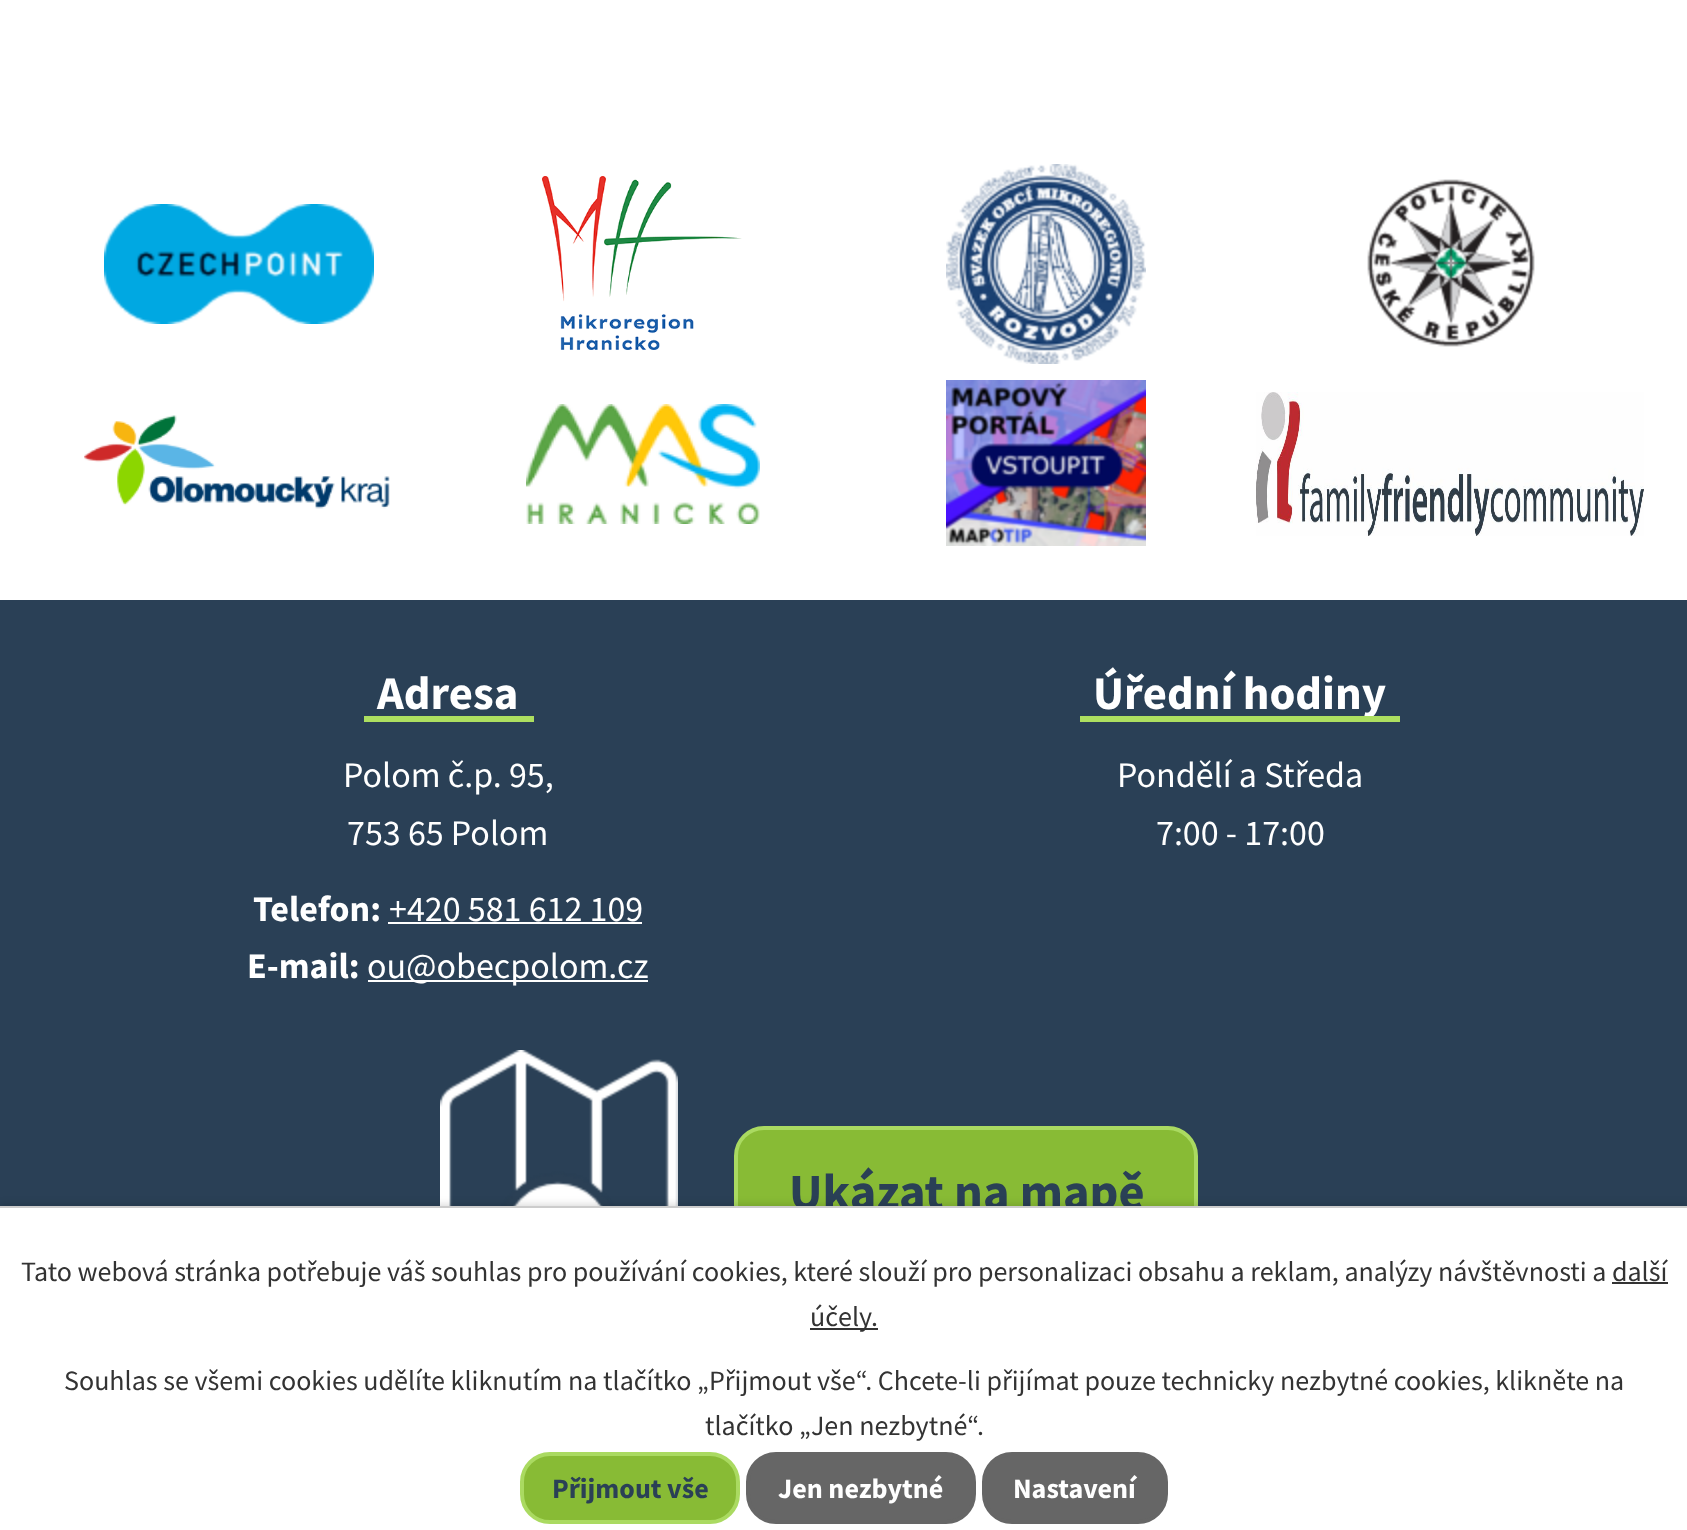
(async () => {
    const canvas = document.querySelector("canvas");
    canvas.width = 1687;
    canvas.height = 1530;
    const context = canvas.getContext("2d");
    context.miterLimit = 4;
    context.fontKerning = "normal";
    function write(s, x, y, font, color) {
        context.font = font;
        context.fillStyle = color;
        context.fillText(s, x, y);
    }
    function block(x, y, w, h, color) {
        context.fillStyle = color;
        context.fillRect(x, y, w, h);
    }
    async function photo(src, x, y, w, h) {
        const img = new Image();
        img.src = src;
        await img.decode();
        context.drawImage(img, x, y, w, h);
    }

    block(0, 0, 1687, 1530, "rgb(255, 255, 255)");
    block(0, 600, 1687, 606, "rgb(42, 64, 86)");
    await photo("media/1.png", 104, 204, 270, 120);
    await photo("media/2.png", 542, 176, 200, 174);
    await photo("media/3.png", 946, 164, 200, 200);
    await photo("media/4.png", 1367, 179, 168, 168);
    await photo("media/5.png", 84, 415, 306, 94);
    await photo("media/6.png", 526, 404, 234, 120);
    await photo("media/7.png", 946, 380, 200, 166);
    await photo("media/8.png", 1256, 392, 388, 144);
    write("Adresa", 377, 709, "bold 46.75px Source Sans Pro", "rgb(255, 255, 255)");
    block(364, 716, 170, 6, "rgb(173, 223, 96)");
    write("Polom č.p. 95,", 343, 787, "36px Source Sans Pro", "rgb(255, 255, 255)");
    write("753 65 Polom", 347, 845, "36px Source Sans Pro", "rgb(255, 255, 255)");
    write("Telefon:", 253, 921, "bold 36px Source Sans Pro", "rgb(255, 255, 255)");
    write("+420 581 612 109", 389, 921, "36px Source Sans Pro", "rgb(255, 255, 255)");
    block(388, 922, 254, 2, "rgb(255, 255, 255)");
    write("E-mail:", 247, 978, "bold 36px Source Sans Pro", "rgb(255, 255, 255)");
    block(368, 980, 280, 2, "rgb(255, 255, 255)");
    write("ou@obecpolom.cz", 367, 978, "36px Source Sans Pro", "rgb(255, 255, 255)");
    write("Úřední hodiny", 1093, 709, "bold 46.75px Source Sans Pro", "rgb(255, 255, 255)");
    block(1080, 716, 320, 6, "rgb(173, 223, 96)");
    write("Pondělí a Středa", 1117, 787, "36px Source Sans Pro", "rgb(255, 255, 255)");
    write("7:00 - 17:00", 1156, 845, "36px Source Sans Pro", "rgb(255, 255, 255)");
    await photo("media/9.png", 440, 1050, 238, 156);
    context.fillStyle = "rgb(136, 187, 53)";
    context.beginPath();
    context.roundRect(736, 1128, 460, 130, 28);
    context.fill();
    context.strokeStyle = "rgb(170, 218, 97)";
    context.lineWidth = 4;
    context.stroke();
    write("Ukázat na mapě", 789, 1209, "bold 50.5px Source Sans Pro", "rgb(42, 64, 86)");
    context.fillStyle = "rgba(0, 0, 0, 0.2)";
    context.filter = "blur(5px)";
    context.beginPath();
    context.rect(0, 1206, 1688, 324);
    context.fill();
    context.filter = "none";
    block(0, 1208, 1687, 322, "rgb(255, 255, 255)");
    block(0, 1206, 1687, 2, "rgb(204, 204, 204)");
    write("Tato webová stránka potřebuje váš souhlas pro používání cookies, které slouží pro personalizaci obsahu a reklam, analýzy návštěvnosti a další", 21, 1281, "28px Source Sans Pro", "rgb(51, 51, 51)");
    block(810, 1328, 68, 2, "rgb(51, 51, 51)");
    write("účely.", 810, 1326, "28px Source Sans Pro", "rgb(51, 51, 51)");
    block(1612, 1282, 56, 2, "rgb(51, 51, 51)");
    write("Souhlas se všemi cookies udělíte kliknutím na tlačítko „Přijmout vše“. Chcete-li přijímat pouze technicky nezbytné cookies, klikněte na", 64, 1390, "28px Source Sans Pro", "rgb(51, 51, 51)");
    write("tlačítko „Jen nezbytné“.", 705, 1435, "28px Source Sans Pro", "rgb(51, 51, 51)");
    context.fillStyle = "rgb(136, 187, 53)";
    context.beginPath();
    context.roundRect(522, 1454, 216, 68, 28);
    context.fill();
    context.stroke();
    write("Přijmout vše", 552, 1498, "bold 28px Source Sans Pro", "rgb(42, 64, 86)");
    context.fillStyle = "rgb(102, 102, 102)";
    context.beginPath();
    context.roundRect(748, 1454, 226, 68, 28);
    context.fill();
    context.strokeStyle = "rgb(102, 102, 102)";
    context.stroke();
    write("Jen nezbytné", 778, 1498, "bold 28px Source Sans Pro", "rgb(255, 255, 255)");
    context.fillStyle = "rgb(102, 102, 102)";
    context.beginPath();
    context.roundRect(984, 1454, 182, 68, 28);
    context.fill();
    context.stroke();
    write("Nastavení", 1013, 1498, "bold 28px Source Sans Pro", "rgb(255, 255, 255)");
})();
